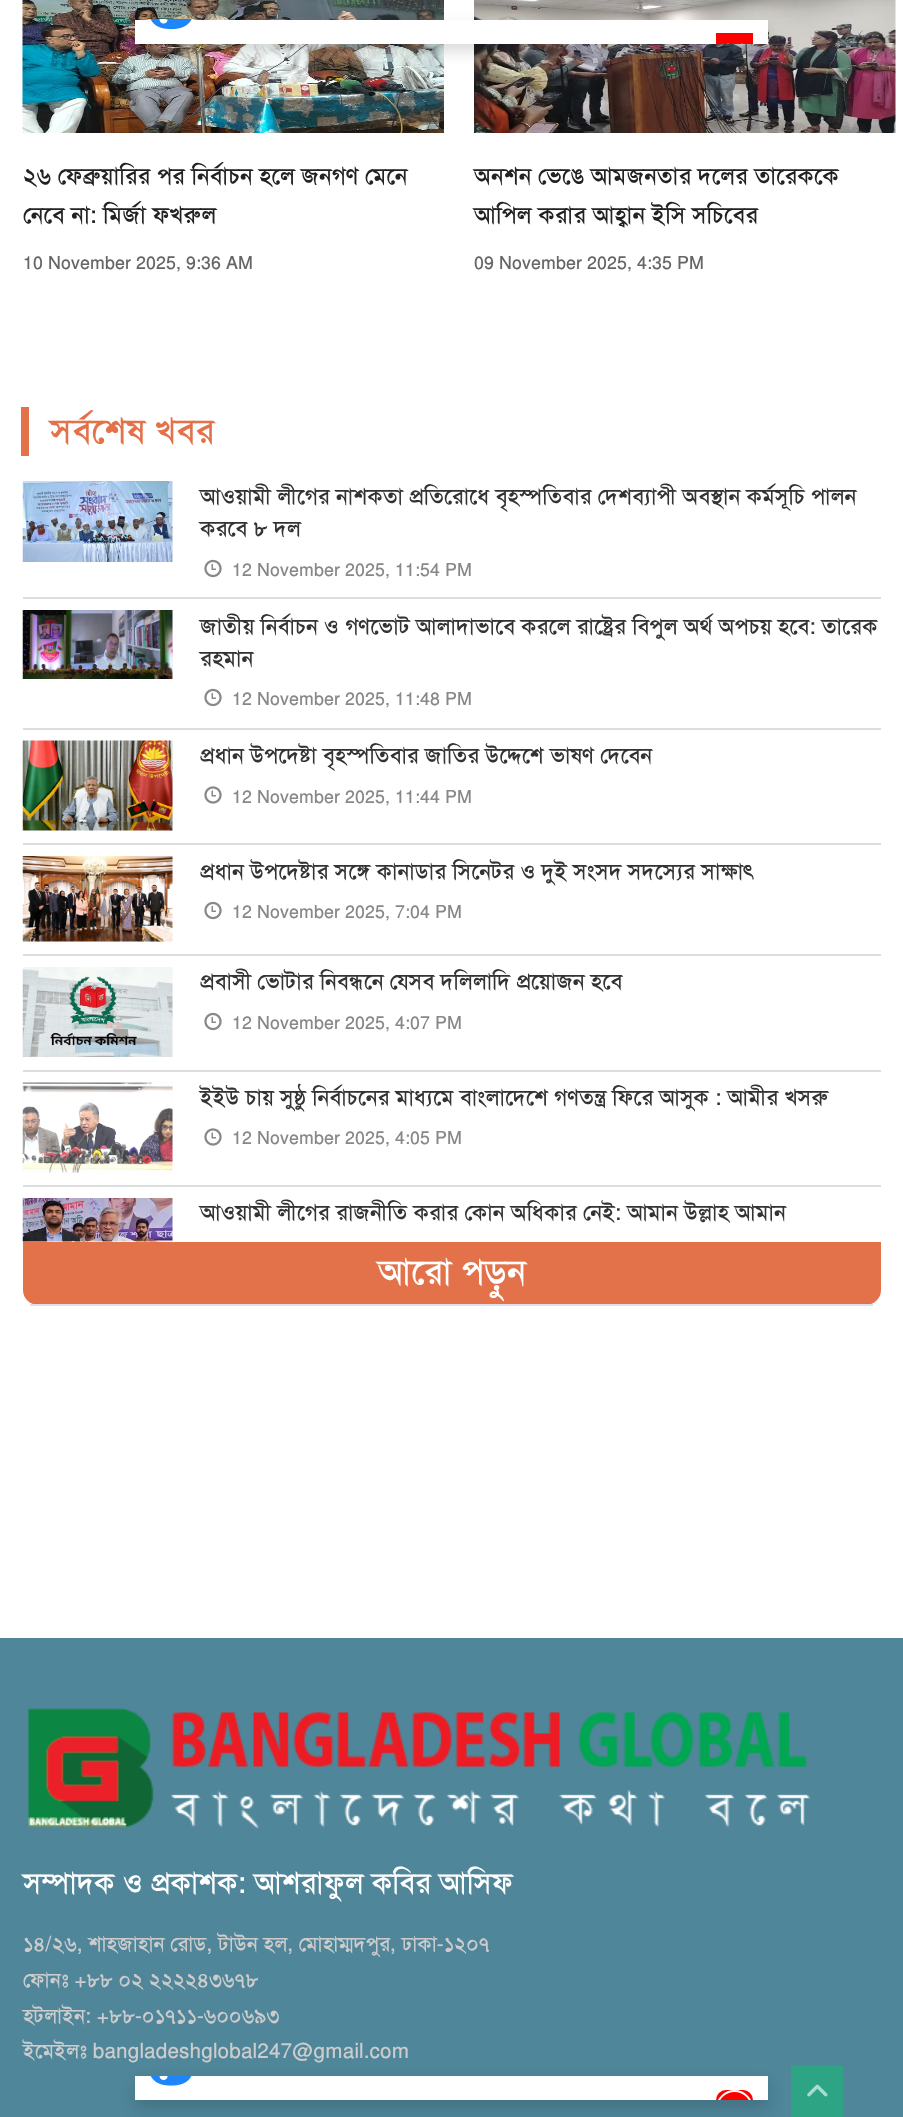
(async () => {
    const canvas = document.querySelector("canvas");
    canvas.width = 903;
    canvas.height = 2117;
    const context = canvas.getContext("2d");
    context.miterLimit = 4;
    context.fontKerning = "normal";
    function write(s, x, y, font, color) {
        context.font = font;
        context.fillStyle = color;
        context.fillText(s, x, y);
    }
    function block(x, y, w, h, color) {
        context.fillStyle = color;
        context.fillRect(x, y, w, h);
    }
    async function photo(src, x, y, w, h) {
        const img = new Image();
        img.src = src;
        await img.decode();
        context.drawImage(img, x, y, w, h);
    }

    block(0, 0, 903, 2117, "rgb(255, 255, 255)");
    await photo("media/2.png", 22, 0, 422, 133);
    await photo("media/3.png", 474, 0, 422, 133);
    context.fillStyle = "rgba(0, 0, 0, 0.15)";
    context.filter = "blur(7.5px)";
    context.beginPath();
    context.rect(135, 27, 633, 24);
    context.fill();
    context.filter = "none";
    block(135, 20, 633, 24, "rgb(255, 255, 255)");
    await photo("media/1.png", 151, 20, 40, 10);
    block(716, 33, 37, 11, "rgb(255, 0, 0)");
    context.save();
    context.beginPath();
    context.rect(726, 42, 18, 2);
    context.clip();
    context.beginPath();
    context.moveTo(742, 45);
    context.lineTo(728, 58.5);
    context.moveTo(728, 45);
    context.lineTo(742, 58.5);
    context.strokeStyle = "rgb(255, 255, 255)";
    context.lineWidth = 2.8;
    context.lineCap = "round";
    context.stroke();
    context.restore();
    write("২৬ ফেব্রুয়ারির পর নির্বাচন হলে জনগণ মেনে", 23, 184, "bold 24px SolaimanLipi", "rgb(34, 34, 34)");
    write("নেবে না: মির্জা ফখরুল", 23, 223, "bold 24px SolaimanLipi", "rgb(34, 34, 34)");
    write("10 November 2025, 9:36 AM", 23, 269, "bold 18px SolaimanLipi", "rgb(102, 102, 102)");
    write("অনশন ভেঙে আমজনতার দলের তারেককে", 474, 184, "bold 24px SolaimanLipi", "rgb(34, 34, 34)");
    write("আপিল করার আহ্বান ইসি সচিবের", 474, 223, "bold 24px SolaimanLipi", "rgb(34, 34, 34)");
    write("09 November 2025, 4:35 PM", 474, 269, "bold 18px SolaimanLipi", "rgb(102, 102, 102)");
    block(21, 407, 8, 49, "rgb(227, 114, 74)");
    write("সর্বশেষ খবর", 50, 443, "bold 36px SolaimanLipi", "rgb(227, 114, 74)");
    block(23, 597, 858, 2, "rgb(221, 221, 221)");
    await photo("media/4.png", 22, 481, 151, 81);
    write("আওয়ামী লীগের নাশকতা প্রতিরোধে বৃহস্পতিবার দেশব্যাপী অবস্থান কর্মসূচি পালন", 200, 504, "bold 22.5px SolaimanLipi", "rgb(51, 51, 51)");
    write("করবে ৮ দল", 200, 536, "bold 22.5px SolaimanLipi", "rgb(51, 51, 51)");
    await photo("media/5.png", 204, 559, 18, 19);
    write("12 November 2025, 11:54 PM", 232, 576, "bold 18px SolaimanLipi", "rgb(136, 136, 136)");
    block(23, 728, 858, 2, "rgb(221, 221, 221)");
    await photo("media/6.png", 22, 610, 151, 69);
    write("জাতীয় নির্বাচন ও গণভোট আলাদাভাবে করলে রাষ্ট্রের বিপুল অর্থ অপচয় হবে: তারেক", 200, 634, "bold 22.5px SolaimanLipi", "rgb(51, 51, 51)");
    write("রহমান", 200, 666, "bold 22.5px SolaimanLipi", "rgb(51, 51, 51)");
    await photo("media/5.png", 204, 688, 18, 19);
    write("12 November 2025, 11:48 PM", 232, 705, "bold 18px SolaimanLipi", "rgb(136, 136, 136)");
    block(23, 843, 858, 2, "rgb(221, 221, 221)");
    await photo("media/7.png", 22, 740, 151, 91);
    write("প্রধান উপদেষ্টা বৃহস্পতিবার জাতির উদ্দেশে ভাষণ দেবেন", 200, 763, "bold 22.5px SolaimanLipi", "rgb(51, 51, 51)");
    await photo("media/8.png", 204, 786, 18, 18);
    write("12 November 2025, 11:44 PM", 232, 803, "bold 18px SolaimanLipi", "rgb(136, 136, 136)");
    block(23, 954, 858, 2, "rgb(221, 221, 221)");
    await photo("media/9.png", 22, 856, 151, 86);
    write("প্রধান উপদেষ্টার সঙ্গে কানাডার সিনেটর ও দুই সংসদ সদস্যের সাক্ষাৎ", 200, 879, "bold 22.5px SolaimanLipi", "rgb(51, 51, 51)");
    await photo("media/5.png", 204, 901, 18, 19);
    write("12 November 2025, 7:04 PM", 232, 918, "bold 18px SolaimanLipi", "rgb(136, 136, 136)");
    block(23, 1070, 858, 2, "rgb(221, 221, 221)");
    await photo("media/10.png", 22, 967, 151, 90);
    write("প্রবাসী ভোটার নিবন্ধনে যেসব দলিলাদি প্রয়োজন হবে", 200, 989, "bold 22.5px SolaimanLipi", "rgb(51, 51, 51)");
    await photo("media/5.png", 204, 1012, 18, 19);
    write("12 November 2025, 4:07 PM", 232, 1029, "bold 18px SolaimanLipi", "rgb(136, 136, 136)");
    block(23, 1185, 858, 2, "rgb(221, 221, 221)");
    await photo("media/11.png", 22, 1082, 151, 91);
    write("ইইউ চায় সুষ্ঠু নির্বাচনের মাধ্যমে বাংলাদেশে গণতন্ত্র ফিরে আসুক : আমীর খসরু", 200, 1105, "bold 22.5px SolaimanLipi", "rgb(51, 51, 51)");
    await photo("media/8.png", 204, 1128, 18, 18);
    write("12 November 2025, 4:05 PM", 232, 1144, "bold 18px SolaimanLipi", "rgb(136, 136, 136)");
    await photo("media/12.png", 22, 1198, 151, 44);
    write("আওয়ামী লীগের রাজনীতি করার কোন অধিকার নেই: আমান উল্লাহ আমান", 200, 1220, "bold 22.5px SolaimanLipi", "rgb(51, 51, 51)");
    context.fillStyle = "rgb(227, 114, 74)";
    context.beginPath();
    context.roundRect(23, 1242, 858, 63, [0, 0, 15, 15]);
    context.fill();
    block(30, 1304, 843, 2, "rgb(221, 222, 238)");
    write("আরো পড়ুন", 378, 1284, "bold 36px SolaimanLipi", "rgb(255, 255, 255)");
    block(0, 1638, 903, 479, "rgb(79, 134, 153)");
    await photo("media/13.png", 28, 1708, 783, 121);
    write("সম্পাদক ও প্রকাশক: আশরাফুল কবির আসিফ", 23, 1893, "bold 30px SolaimanLipi", "rgb(255, 255, 255)");
    write("১৪/২৬, শাহজাহান রোড, টাউন হল, মোহাম্মদপুর, ঢাকা-১২০৭", 23, 1951, "bold 21px SolaimanLipi", "rgb(204, 204, 204)");
    write("ফোনঃ +৮৮ ০২ ২২২২৪৩৬৭৮", 23, 1987, "bold 21px SolaimanLipi", "rgb(204, 204, 204)");
    write("হটলাইন: +৮৮-০১৭১১-৬০০৬৯৩", 23, 2023, "bold 21px SolaimanLipi", "rgb(204, 204, 204)");
    write("ইমেইলঃ bangladeshglobal247@gmail.com", 23, 2058, "bold 21px SolaimanLipi", "rgb(204, 204, 204)");
    block(791, 2066, 52, 51, "rgb(45, 165, 133)");
    context.fillStyle = "rgba(0, 0, 0, 0.15)";
    context.filter = "blur(7.5px)";
    context.beginPath();
    context.rect(135, 2084, 633, 24);
    context.fill();
    context.filter = "none";
    block(135, 2076, 633, 24, "rgb(255, 255, 255)");
    await photo("media/14.png", 150, 2076, 42, 10);
    context.fillStyle = "rgb(255, 0, 0)";
    context.beginPath();
    context.roundRect(716, 2090, 37, 10, [18.5, 18.5, 0, 0]);
    context.fill();
    context.save();
    context.beginPath();
    context.rect(135, 2076, 633, 24);
    context.clip();
    context.beginPath();
    context.arc(734.5, 2108.5, 17.5, 0, Math.PI * 2);
    context.strokeStyle = "rgb(255, 255, 255)";
    context.lineWidth = 2;
    context.stroke();
    context.restore();
    await photo("media/15.png", 807, 2084, 21, 13);
})();
